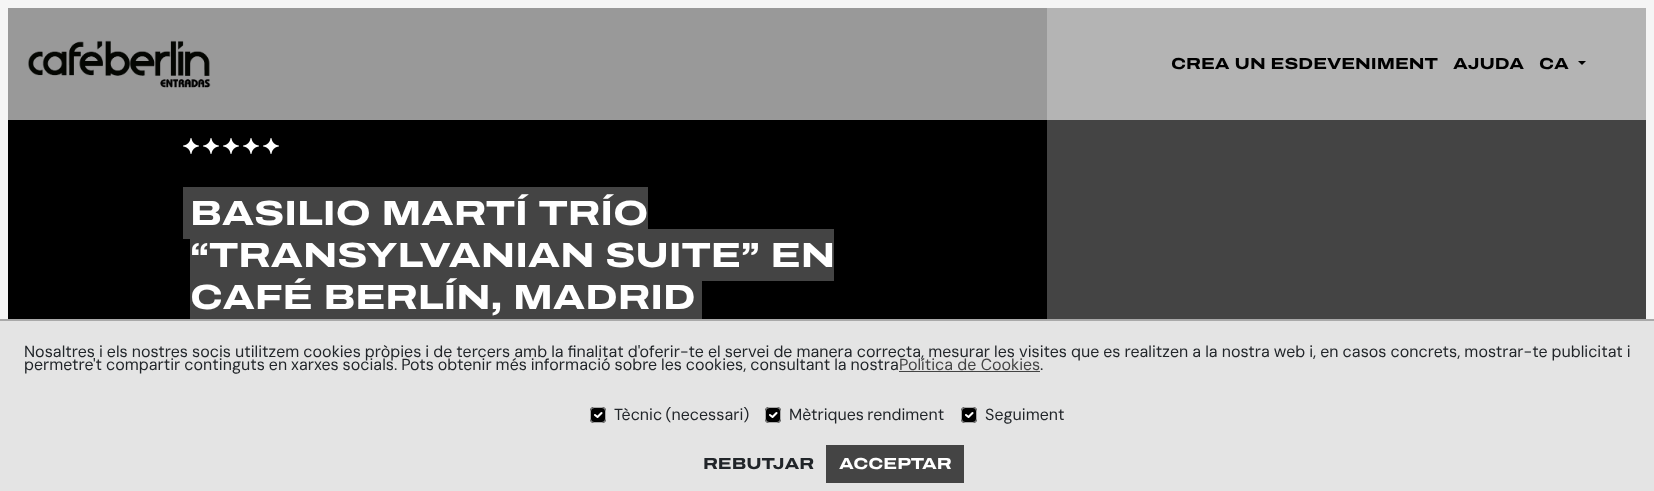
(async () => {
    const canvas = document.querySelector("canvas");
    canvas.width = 1654;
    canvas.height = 491;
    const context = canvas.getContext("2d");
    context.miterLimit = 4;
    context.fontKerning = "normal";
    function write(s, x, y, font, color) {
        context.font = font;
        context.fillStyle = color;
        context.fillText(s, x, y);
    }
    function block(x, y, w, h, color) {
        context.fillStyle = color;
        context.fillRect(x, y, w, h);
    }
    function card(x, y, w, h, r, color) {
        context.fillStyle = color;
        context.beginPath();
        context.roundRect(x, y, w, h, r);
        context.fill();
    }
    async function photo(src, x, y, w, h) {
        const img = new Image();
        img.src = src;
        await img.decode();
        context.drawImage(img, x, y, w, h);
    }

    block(0, 0, 1654, 491, "rgb(245, 245, 245)");
    block(8, 8, 1039, 112, "rgb(153, 153, 153)");
    await photo("media/1.png", 28, 40, 183, 48);
    block(1047, 8, 599, 112, "rgb(180, 180, 180)");
    write("CREA UN ESDEVENIMENT", 1171, 69, "800 16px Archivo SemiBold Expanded", "rgb(0, 0, 0)");
    write("AJUDA", 1453, 69, "800 16px Archivo SemiBold Expanded", "rgb(0, 0, 0)");
    write("CA", 1539, 69, "800 16px Archivo SemiBold Expanded", "rgb(0, 0, 0)");
    context.beginPath();
    context.moveTo(1578, 61);
    context.lineTo(1586, 61);
    context.lineTo(1582, 65);
    context.closePath();
    context.fill();
    block(1047, 120, 599, 199, "rgb(68, 68, 68)");
    block(8, 120, 1039, 199, "rgb(0, 0, 0)");
    await photo("media/2.png", 183, 138, 16, 16);
    await photo("media/2.png", 203, 138, 16, 16);
    await photo("media/2.png", 223, 138, 16, 16);
    await photo("media/2.png", 243, 138, 16, 16);
    await photo("media/2.png", 263, 138, 16, 16);
    block(183, 187, 465, 52, "rgb(68, 68, 68)");
    context.letterSpacing = "-0.1px";
    write("BASILIO MARTÍ TRÍO", 190, 225, "800 35px Archivo SemiBold Expanded", "rgb(255, 255, 255)");
    block(190, 229, 644, 52, "rgb(68, 68, 68)");
    write("“TRANSYLVANIAN SUITE” EN", 190, 267, "800 35px Archivo SemiBold Expanded", "rgb(255, 255, 255)");
    block(190, 281, 512, 38, "rgb(68, 68, 68)");
    write("CAFÉ BERLÍN, MADRID", 190, 309, "800 35px Archivo SemiBold Expanded", "rgb(255, 255, 255)");
    block(0, 321, 1654, 170, "rgb(228, 228, 228)");
    block(0, 319, 1654, 2, "rgb(169, 169, 169)");
    context.letterSpacing = "0px";
    context.wordSpacing = "-0.25px";
    write("Nosaltres i els nostres socis utilitzem cookies pròpies i de tercers amb la finalitat d'oferir-te el servei de manera correcta, mesurar les visites que es realitzen a la nostra web i, en casos concrets, mostrar-te publicitat i", 24, 357, "16px DM Sans", "rgb(33, 37, 41)");
    context.wordSpacing = "-0.4px";
    write("permetre't compartir continguts en xarxes socials. Pots obtenir més informació sobre les cookies, consultant la nostra", 24, 370, "16px DM Sans", "rgb(33, 37, 41)");
    context.wordSpacing = "0px";
    write("Política de Cookies", 899, 370, "16px DM Sans", "rgb(68, 68, 68)");
    block(899, 371, 141, 1, "rgb(68, 68, 68)");
    write(".", 1040, 370, "16px DM Sans", "rgb(33, 37, 41)");
    card(590, 407, 16, 16, 4, "rgb(0, 0, 0)");
    context.beginPath();
    context.moveTo(595, 415);
    context.lineTo(597.5, 417);
    context.lineTo(601.5, 413);
    context.strokeStyle = "rgb(255, 255, 255)";
    context.lineWidth = 2.1;
    context.lineCap = "round";
    context.lineJoin = "round";
    context.stroke();
    context.beginPath();
    context.roundRect(590.5, 407.5, 15, 15, 3.5);
    context.strokeStyle = "rgb(169, 169, 169)";
    context.lineWidth = 1;
    context.lineJoin = "miter";
    context.stroke();
    context.wordSpacing = "-1px";
    write("Tècnic (necessari)", 614, 420, "16px DM Sans", "rgb(33, 37, 41)");
    card(765, 407, 16, 16, 4, "rgb(0, 0, 0)");
    context.beginPath();
    context.moveTo(770, 415);
    context.lineTo(772.5, 417);
    context.lineTo(776.5, 413);
    context.strokeStyle = "rgb(255, 255, 255)";
    context.lineWidth = 2.1;
    context.lineJoin = "round";
    context.stroke();
    context.beginPath();
    context.roundRect(765.5, 407.5, 15, 15, 3.5);
    context.strokeStyle = "rgb(169, 169, 169)";
    context.lineWidth = 1;
    context.lineJoin = "miter";
    context.stroke();
    write("Mètriques rendiment", 789, 420, "16px DM Sans", "rgb(33, 37, 41)");
    card(961, 407, 16, 16, 4, "rgb(0, 0, 0)");
    context.beginPath();
    context.moveTo(966, 415);
    context.lineTo(968.5, 417);
    context.lineTo(972.5, 413);
    context.strokeStyle = "rgb(255, 255, 255)";
    context.lineWidth = 2.1;
    context.lineJoin = "round";
    context.stroke();
    context.beginPath();
    context.roundRect(961.5, 407.5, 15, 15, 3.5);
    context.strokeStyle = "rgb(169, 169, 169)";
    context.lineWidth = 1;
    context.lineJoin = "miter";
    context.stroke();
    context.wordSpacing = "0px";
    write("Seguiment", 985, 420, "16px DM Sans", "rgb(33, 37, 41)");
    write("REBUTJAR", 703, 469, "800 16px Archivo SemiBold Expanded", "rgb(33, 37, 41)");
    block(826, 445, 138, 38, "rgb(68, 68, 68)");
    write("ACCEPTAR", 839, 469, "800 16px Archivo SemiBold Expanded", "rgb(255, 255, 255)");
})();
